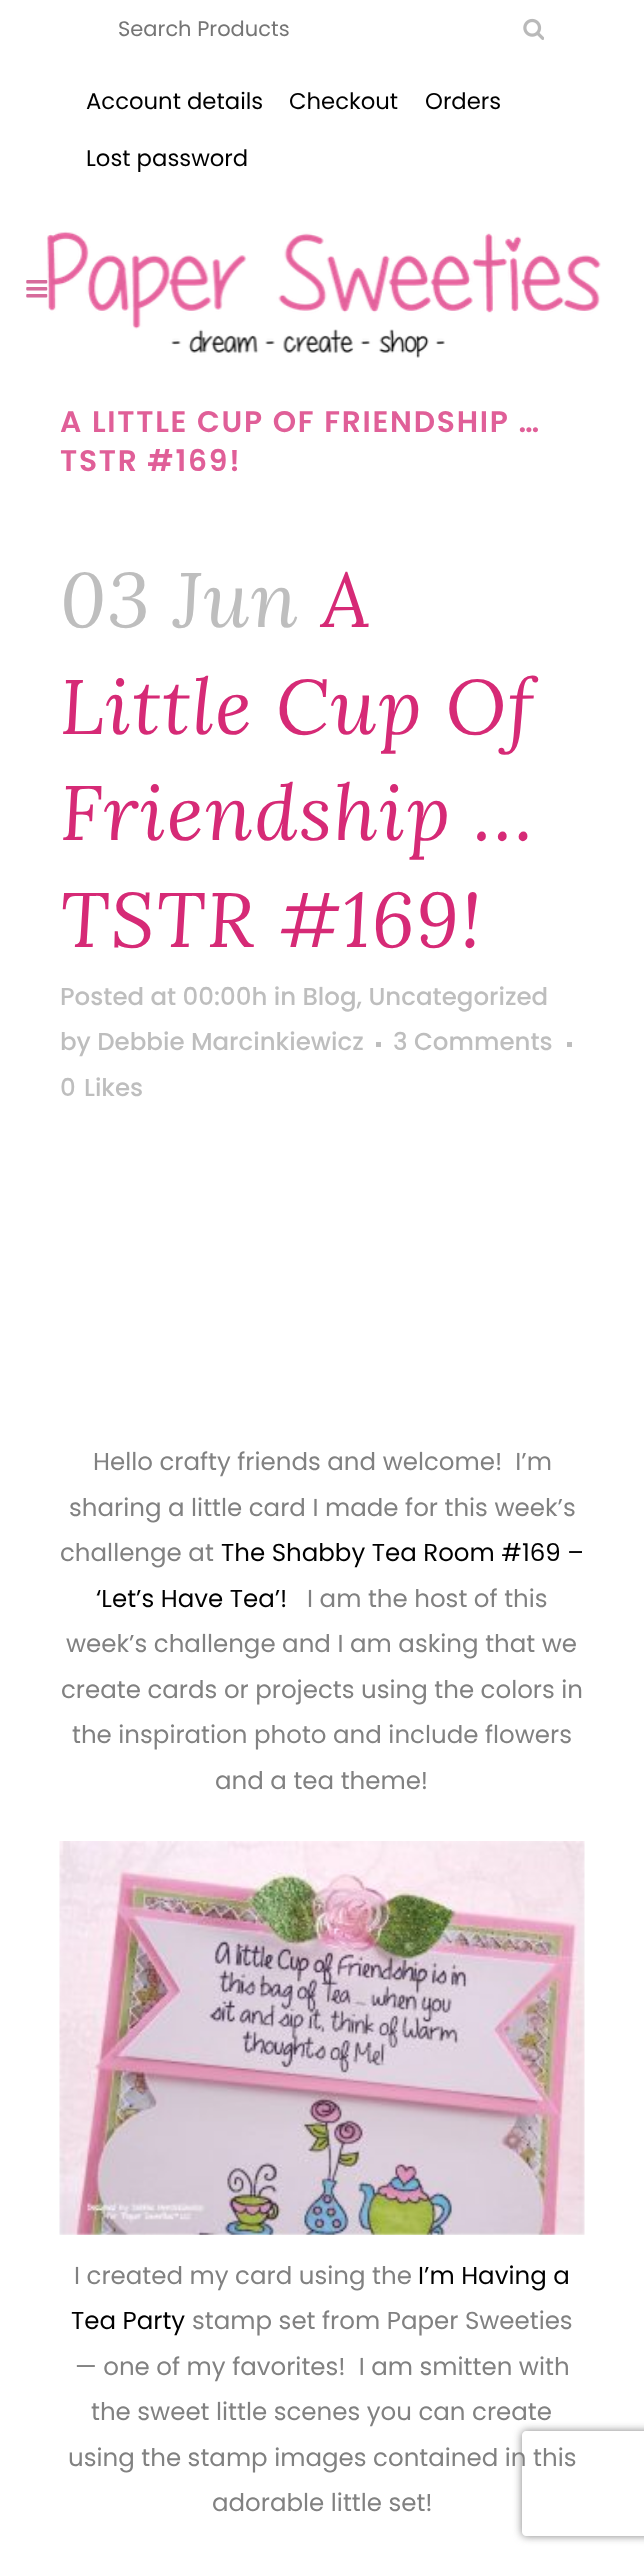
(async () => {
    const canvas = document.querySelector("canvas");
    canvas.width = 644;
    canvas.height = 2559;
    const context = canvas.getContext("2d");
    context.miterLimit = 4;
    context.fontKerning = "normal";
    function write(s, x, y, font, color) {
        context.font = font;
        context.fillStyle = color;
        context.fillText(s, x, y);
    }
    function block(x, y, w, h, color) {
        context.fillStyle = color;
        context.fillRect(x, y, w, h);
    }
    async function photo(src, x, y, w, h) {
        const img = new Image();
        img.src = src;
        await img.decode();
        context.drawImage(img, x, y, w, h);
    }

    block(0, 0, 644, 2559, "rgb(255, 255, 255)");
    write("Search Products", 118, 36, "21px Poppins", "rgb(117, 117, 117)");
    await photo("media/1.png", 523, 18, 21, 22);
    write("Account details", 86, 109, "22.75px Poppins", "rgb(0, 0, 0)");
    write("Checkout", 289, 109, "22.75px Poppins", "rgb(0, 0, 0)");
    write("Orders", 425, 109, "22.75px Poppins", "rgb(0, 0, 0)");
    write("Lost password", 86, 166, "22.75px Poppins", "rgb(0, 0, 0)");
    await photo("media/3.png", 46, 231, 555, 127);
    await photo("media/2.png", 26, 280, 22, 18);
    context.letterSpacing = "1.75px";
    write("A LITTLE CUP OF FRIENDSHIP …", 60, 432, "600 29.75px Poppins", "rgb(224, 95, 152)");
    write("TSTR #169!", 60, 471, "600 29.75px Poppins", "rgb(224, 95, 152)");
    write("03 Jun", 60, 627, "italic 77px Lora", "rgb(190, 190, 190)");
    write("A", 321, 627, "italic 77px Lora", "rgb(214, 42, 118)");
    write("Little Cup Of", 60, 734, "italic 77px Lora", "rgb(214, 42, 118)");
    write("Friendship …", 60, 840, "italic 77px Lora", "rgb(214, 42, 118)");
    write("TSTR #169!", 60, 947, "italic 77px Lora", "rgb(214, 42, 118)");
    context.letterSpacing = "0px";
    write("Posted at 00:00h in Blog, Uncategorized", 60, 1005, "500 24.5px Poppins", "rgb(190, 190, 190)");
    write("by Debbie Marcinkiewicz", 60, 1050, "500 24.5px Poppins", "rgb(190, 190, 190)");
    block(376, 1042, 5, 5, "rgb(190, 190, 190)");
    write("3 Comments", 393, 1050, "500 24.5px Poppins", "rgb(190, 190, 190)");
    block(567, 1042, 5, 5, "rgb(190, 190, 190)");
    write("0", 60, 1096, "500 24.5px Poppins", "rgb(190, 190, 190)");
    write("Likes", 84, 1096, "500 24.5px Poppins", "rgb(190, 190, 190)");
    write("Hello crafty friends and welcome!  I’m", 93, 1470, "24.5px Poppins", "rgb(129, 129, 129)");
    write("sharing a little card I made for this week’s", 69, 1516, "24.5px Poppins", "rgb(129, 129, 129)");
    write("challenge at", 60, 1561, "24.5px Poppins", "rgb(129, 129, 129)");
    write("The Shabby Tea Room #169 –", 221, 1561, "24.5px Poppins", "rgb(0, 0, 0)");
    write("‘Let’s Have Tea’!", 96, 1607, "24.5px Poppins", "rgb(0, 0, 0)");
    write("I am the host of this", 307, 1607, "24.5px Poppins", "rgb(129, 129, 129)");
    write("week’s challenge and I am asking that we", 66, 1652, "24.5px Poppins", "rgb(129, 129, 129)");
    write("create cards or projects using the colors in", 61, 1698, "24.5px Poppins", "rgb(129, 129, 129)");
    write("the inspiration photo and include flowers", 72, 1743, "24.5px Poppins", "rgb(129, 129, 129)");
    write("and a tea theme!", 215, 1789, "24.5px Poppins", "rgb(129, 129, 129)");
    await photo("media/4.png", 59, 1841, 526, 394);
    write("I created my card using the", 74, 2284, "24.5px Poppins", "rgb(129, 129, 129)");
    write("I’m Having a", 418, 2284, "24.5px Poppins", "rgb(0, 0, 0)");
    write("Tea Party", 71, 2329, "24.5px Poppins", "rgb(0, 0, 0)");
    write("stamp set from Paper Sweeties", 192, 2329, "24.5px Poppins", "rgb(129, 129, 129)");
    write("— one of my favorites!  I am smitten with", 75, 2375, "24.5px Poppins", "rgb(129, 129, 129)");
    context.save();
    context.beginPath();
    context.moveTo(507, 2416);
    context.lineTo(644, 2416);
    context.lineTo(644, 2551);
    context.lineTo(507, 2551);
    context.closePath();
    context.moveTo(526, 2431);
    context.lineTo(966, 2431);
    context.bezierCurveTo(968, 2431, 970, 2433, 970, 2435);
    context.lineTo(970, 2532);
    context.bezierCurveTo(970, 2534, 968, 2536, 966, 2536);
    context.lineTo(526, 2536);
    context.bezierCurveTo(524, 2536, 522, 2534, 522, 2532);
    context.lineTo(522, 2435);
    context.bezierCurveTo(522, 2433, 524, 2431, 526, 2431);
    context.closePath();
    context.clip("evenodd");
    context.fillStyle = "rgb(128, 128, 128)";
    context.filter = "blur(4.5px)";
    context.beginPath();
    context.roundRect(522, 2431, 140, 105, 4);
    context.fill();
    context.filter = "none";
    context.restore();
    write("the sweet little scenes you can create", 91, 2420, "24.5px Poppins", "rgb(129, 129, 129)");
    write("using the stamp images contained in this", 68, 2466, "24.5px Poppins", "rgb(129, 129, 129)");
    write("adorable little set!", 212, 2511, "24.5px Poppins", "rgb(129, 129, 129)");
})();
